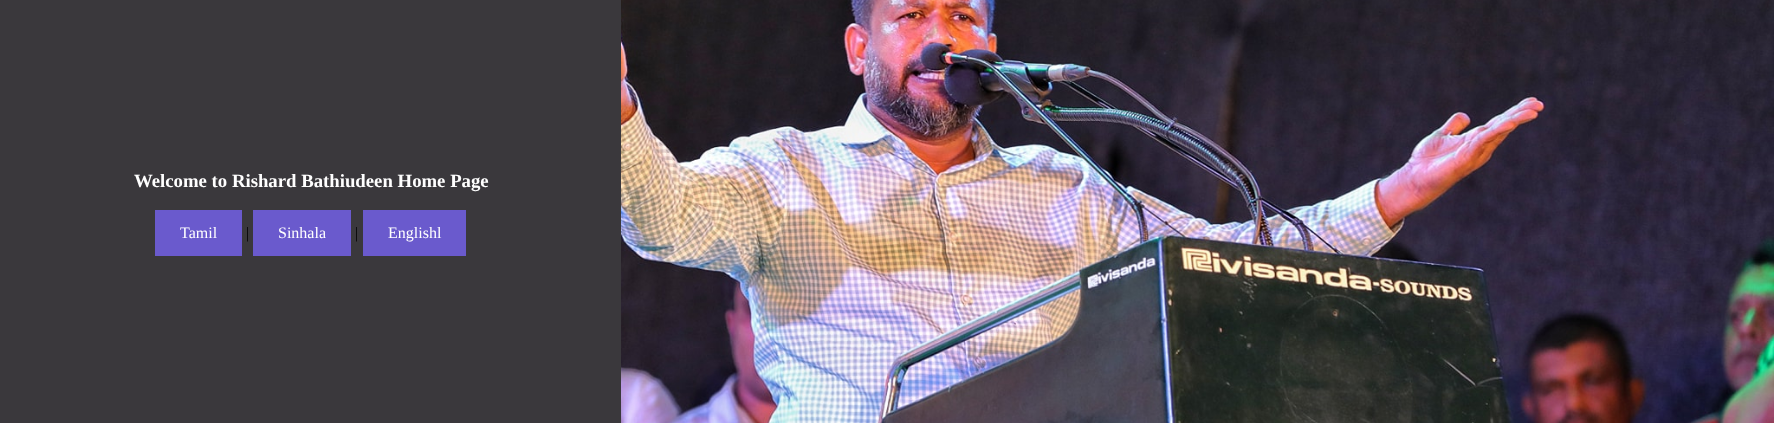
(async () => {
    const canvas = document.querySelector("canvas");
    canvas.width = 1774;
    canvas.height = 423;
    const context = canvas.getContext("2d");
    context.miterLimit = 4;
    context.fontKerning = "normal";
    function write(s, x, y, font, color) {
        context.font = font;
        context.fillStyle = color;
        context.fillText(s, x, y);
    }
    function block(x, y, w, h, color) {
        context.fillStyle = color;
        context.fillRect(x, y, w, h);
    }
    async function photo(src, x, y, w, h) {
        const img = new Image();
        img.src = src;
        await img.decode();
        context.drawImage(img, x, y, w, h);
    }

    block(0, 0, 1774, 423, "rgb(255, 255, 255)");
    await photo("media/1.png", 621, 0, 1153, 423);
    block(0, 0, 621, 423, "rgb(58, 56, 60)");
    write("Welcome to Rishard Bathiudeen Home Page", 134, 187, "bold 18.75px Liberation Serif", "rgb(255, 255, 255)");
    block(155, 210, 87, 46, "rgb(106, 90, 205)");
    write("Tamil", 180, 238, "16px Liberation Serif", "rgb(255, 255, 255)");
    write("|", 246, 238, "16px Liberation Serif", "rgb(0, 0, 0)");
    block(253, 210, 98, 46, "rgb(106, 90, 205)");
    write("Sinhala", 278, 238, "16px Liberation Serif", "rgb(255, 255, 255)");
    write("|", 355, 238, "16px Liberation Serif", "rgb(0, 0, 0)");
    block(363, 210, 103, 46, "rgb(106, 90, 205)");
    write("Englishl", 388, 238, "16px Liberation Serif", "rgb(255, 255, 255)");
})();
